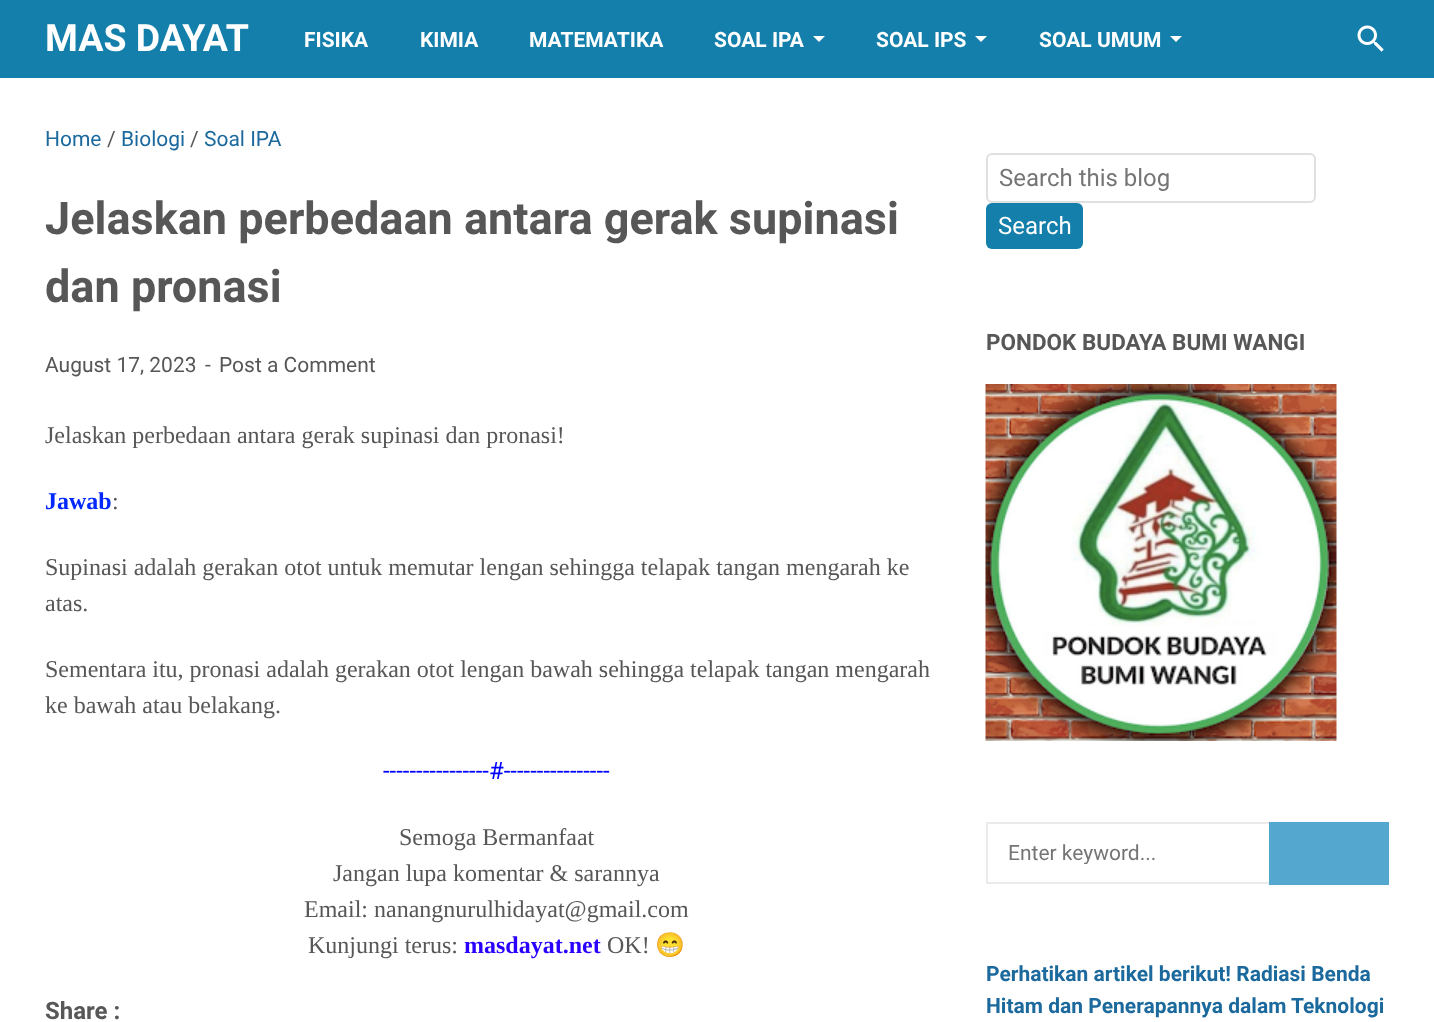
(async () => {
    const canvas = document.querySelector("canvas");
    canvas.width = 1434;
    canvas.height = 1022;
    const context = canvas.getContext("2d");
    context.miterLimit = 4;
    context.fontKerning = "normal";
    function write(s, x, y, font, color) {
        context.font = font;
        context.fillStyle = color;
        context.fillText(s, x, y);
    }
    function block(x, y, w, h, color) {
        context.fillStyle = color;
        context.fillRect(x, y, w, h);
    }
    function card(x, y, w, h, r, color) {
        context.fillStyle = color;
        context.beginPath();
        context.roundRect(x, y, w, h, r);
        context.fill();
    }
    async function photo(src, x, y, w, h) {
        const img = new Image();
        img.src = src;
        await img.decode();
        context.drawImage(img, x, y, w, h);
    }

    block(0, 0, 1434, 1022, "rgb(255, 255, 255)");
    block(0, 0, 1434, 78, "rgb(19, 127, 170)");
    write("MAS DAYAT", 45, 51, "bold 37.5px Roboto", "rgb(255, 255, 255)");
    write("FISIKA", 304, 47, "bold 21px Roboto", "rgb(255, 255, 255)");
    write("KIMIA", 420, 47, "bold 21px Roboto", "rgb(255, 255, 255)");
    write("MATEMATIKA", 529, 47, "bold 21px Roboto", "rgb(255, 255, 255)");
    write("SOAL IPA", 714, 47, "bold 21px Roboto", "rgb(255, 255, 255)");
    context.beginPath();
    context.moveTo(813, 36);
    context.lineTo(825, 36);
    context.lineTo(819, 42);
    context.closePath();
    context.fill();
    write("SOAL IPS", 876, 47, "bold 21px Roboto", "rgb(255, 255, 255)");
    context.beginPath();
    context.moveTo(975, 36);
    context.lineTo(987, 36);
    context.lineTo(981, 42);
    context.closePath();
    context.fill();
    write("SOAL UMUM", 1039, 47, "bold 21px Roboto", "rgb(255, 255, 255)");
    context.beginPath();
    context.moveTo(1170, 36);
    context.lineTo(1182, 36);
    context.lineTo(1176, 42);
    context.closePath();
    context.fill();
    await photo("media/1.png", 1357, 25, 27, 27);
    write("Home", 45, 146, "21px Roboto", "rgb(27, 105, 157)");
    write("/", 107, 146, "21px Roboto", "rgb(87, 87, 87)");
    write("Biologi", 121, 146, "21px Roboto", "rgb(27, 105, 157)");
    write("/", 190, 146, "21px Roboto", "rgb(87, 87, 87)");
    write("Soal IPA", 204, 146, "21px Roboto", "rgb(27, 105, 157)");
    write("Jelaskan perbedaan antara gerak supinasi", 45, 234, "bold 45px Roboto", "rgb(87, 87, 87)");
    write("dan pronasi", 45, 302, "bold 45px Roboto", "rgb(87, 87, 87)");
    write("August 17, 2023", 45, 372, "21px Roboto", "rgb(87, 87, 87)");
    write("-", 205, 372, "21px Roboto", "rgb(87, 87, 87)");
    write("Post a Comment", 219, 372, "21px Roboto", "rgb(87, 87, 87)");
    write("Jelaskan perbedaan antara gerak supinasi dan pronasi!", 45, 443, "24px Liberation Serif", "rgb(87, 87, 87)");
    write("Jawab", 45, 509, "bold 24px Liberation Serif", "rgb(0, 40, 255)");
    write(":", 112, 509, "24px Liberation Serif", "rgb(87, 87, 87)");
    write("Supinasi adalah gerakan otot untuk memutar lengan sehingga telapak tangan mengarah ke", 45, 575, "24px Liberation Serif", "rgb(87, 87, 87)");
    write("atas.", 45, 611, "24px Liberation Serif", "rgb(87, 87, 87)");
    write("Sementara itu, pronasi adalah gerakan otot lengan bawah sehingga telapak tangan mengarah", 45, 677, "24px Liberation Serif", "rgb(87, 87, 87)");
    write("ke bawah atau belakang.", 45, 713, "24px Liberation Serif", "rgb(87, 87, 87)");
    write("----------------#----------------", 383, 779, "24px Roboto", "rgb(0, 0, 255)");
    write("Semoga Bermanfaat", 399, 845, "24px Liberation Serif", "rgb(87, 87, 87)");
    write("Jangan lupa komentar & sarannya", 333, 881, "24px Liberation Serif", "rgb(87, 87, 87)");
    write("Email: nanangnurulhidayat@gmail.com", 304, 917, "24px Liberation Serif", "rgb(87, 87, 87)");
    write("Kunjungi terus:", 308, 953, "24px Liberation Serif", "rgb(87, 87, 87)");
    write("masdayat.net", 464, 953, "bold 24px Liberation Serif", "rgb(43, 0, 254)");
    write("OK!", 607, 953, "24px Liberation Serif", "rgb(87, 87, 87)");
    write("😁", 655, 953, "24px Noto Color Emoji", "rgb(87, 87, 87)");
    write("Share :", 45, 1019, "bold 24px Roboto", "rgb(87, 87, 87)");
    context.beginPath();
    context.roundRect(987, 154, 328, 48, 5);
    context.strokeStyle = "rgb(224, 224, 224)";
    context.lineWidth = 2;
    context.stroke();
    write("Search this blog", 999, 186, "24px Roboto", "rgb(117, 117, 117)");
    card(986, 203, 97, 46, 6, "rgb(19, 127, 170)");
    write("Search", 998, 234, "24px Roboto", "rgb(255, 255, 255)");
    write("PONDOK BUDAYA BUMI WANGI", 986, 350, "bold 22.5px Roboto", "rgb(87, 87, 87)");
    await photo("media/2.png", 985, 384, 352, 357);
    context.strokeStyle = "rgb(235, 235, 235)";
    context.strokeRect(987, 823, 401, 60);
    context.save();
    context.beginPath();
    context.rect(1008, 840, 360, 24);
    context.clip();
    write("Enter keyword...", 1008, 860, "21px Roboto", "rgb(117, 117, 117)");
    context.restore();
    block(1269, 822, 120, 63, "rgb(84, 168, 208)");
    write("Perhatikan artikel berikut! Radiasi Benda", 986, 981, "bold 21px Roboto", "rgb(27, 105, 157)");
    write("Hitam dan Penerapannya dalam Teknologi", 986, 1013, "bold 21px Roboto", "rgb(27, 105, 157)");
})();
